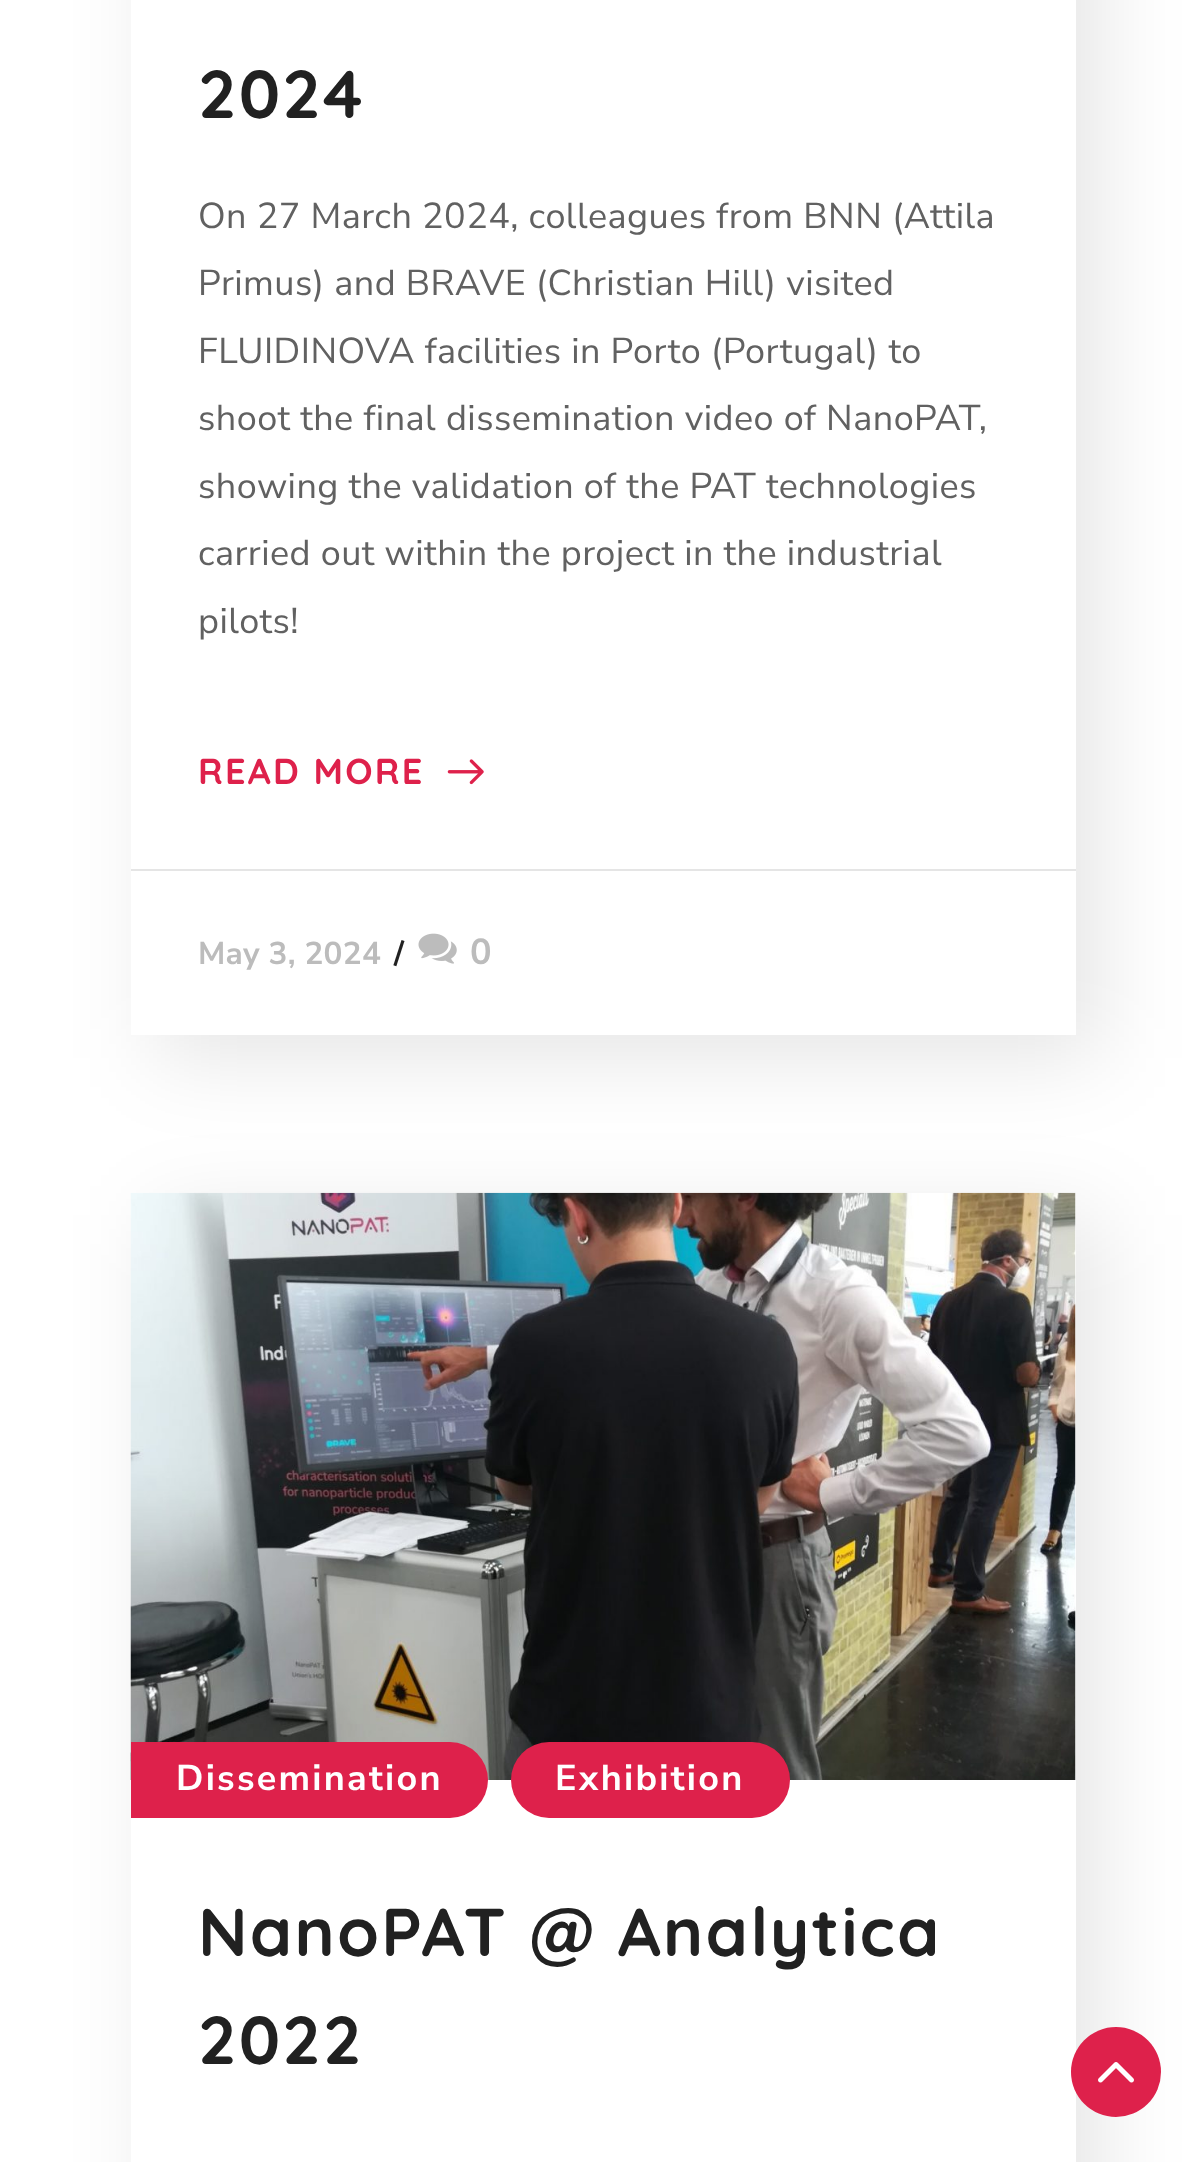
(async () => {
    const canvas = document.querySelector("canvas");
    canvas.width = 1204;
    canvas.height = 2162;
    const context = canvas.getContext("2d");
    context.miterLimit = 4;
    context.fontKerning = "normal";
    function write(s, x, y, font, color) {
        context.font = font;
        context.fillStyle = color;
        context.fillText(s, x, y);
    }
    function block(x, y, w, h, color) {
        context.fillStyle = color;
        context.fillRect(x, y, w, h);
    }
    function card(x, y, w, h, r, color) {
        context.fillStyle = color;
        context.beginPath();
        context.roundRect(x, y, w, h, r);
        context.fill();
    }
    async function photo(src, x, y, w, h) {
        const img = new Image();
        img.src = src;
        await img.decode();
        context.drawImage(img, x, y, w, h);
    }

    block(0, 0, 1204, 2162, "rgb(255, 255, 255)");
    context.fillStyle = "rgba(0, 0, 0, 0.1)";
    context.filter = "blur(43px)";
    context.beginPath();
    context.rect(155, -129, 945, 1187);
    context.fill();
    context.filter = "none";
    block(131, 0, 945, 1035, "rgb(255, 255, 255)");
    context.letterSpacing = "2.25px";
    write("2024", 198, 118, "bold 67.5px Quicksand", "rgb(33, 33, 33)");
    context.letterSpacing = "0.45px";
    write("On 27 March 2024, colleagues from BNN (Attila", 198, 228, "200 36px Nunito Sans", "rgb(97, 97, 97)");
    write("Primus) and BRAVE (Christian Hill) visited", 198, 295, "200 36px Nunito Sans", "rgb(97, 97, 97)");
    write("FLUIDINOVA facilities in Porto (Portugal) to", 198, 363, "200 36px Nunito Sans", "rgb(97, 97, 97)");
    write("shoot the final dissemination video of NanoPAT,", 198, 430, "200 36px Nunito Sans", "rgb(97, 97, 97)");
    write("showing the validation of the PAT technologies", 198, 498, "200 36px Nunito Sans", "rgb(97, 97, 97)");
    write("carried out within the project in the industrial", 198, 565, "200 36px Nunito Sans", "rgb(97, 97, 97)");
    write("pilots!", 198, 633, "200 36px Nunito Sans", "rgb(97, 97, 97)");
    context.letterSpacing = "2.25px";
    write("READ MORE", 198, 784, "bold 36px Quicksand", "rgb(222, 33, 75)");
    await photo("media/1.png", 447, 759, 37, 26);
    block(131, 869, 945, 2, "rgb(229, 229, 229)");
    context.letterSpacing = "0.25px";
    write("May 3, 2024", 198, 964, "bold 31.5px Nunito Sans", "rgb(188, 188, 188)");
    write("/", 394, 964, "bold 31.5px Nunito Sans", "rgb(33, 33, 33)");
    await photo("media/2.png", 418, 933, 39, 31);
    context.letterSpacing = "2.25px";
    write("0", 470, 964, "bold 36px Nunito Sans", "rgb(188, 188, 188)");
    context.fillStyle = "rgba(0, 0, 0, 0.1)";
    context.filter = "blur(43px)";
    context.beginPath();
    context.rect(155, 1215, 945, 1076);
    context.fill();
    context.filter = "none";
    block(131, 1193, 945, 969, "rgb(255, 255, 255)");
    await photo("media/3.png", 130, 1192, 946, 588);
    context.fillStyle = "rgb(222, 33, 75)";
    context.beginPath();
    context.roundRect(131, 1742, 357, 76, [0, 38, 38, 0]);
    context.fill();
    write("Dissemination", 176, 1790, "bold 36px Nunito Sans", "rgb(255, 255, 255)");
    card(511, 1742, 279, 76, 38, "rgb(222, 33, 75)");
    write("Exhibition", 555, 1790, "bold 36px Nunito Sans", "rgb(255, 255, 255)");
    write("NanoPAT @ Analytica", 198, 1956, "bold 67.5px Quicksand", "rgb(33, 33, 33)");
    write("2022", 198, 2064, "bold 67.5px Quicksand", "rgb(33, 33, 33)");
    context.fillStyle = "rgb(222, 33, 75)";
    context.beginPath();
    context.arc(1116, 2072, 45, 0, Math.PI * 2);
    context.fill();
    await photo("media/4.png", 1098, 2062, 36, 21);
})();
